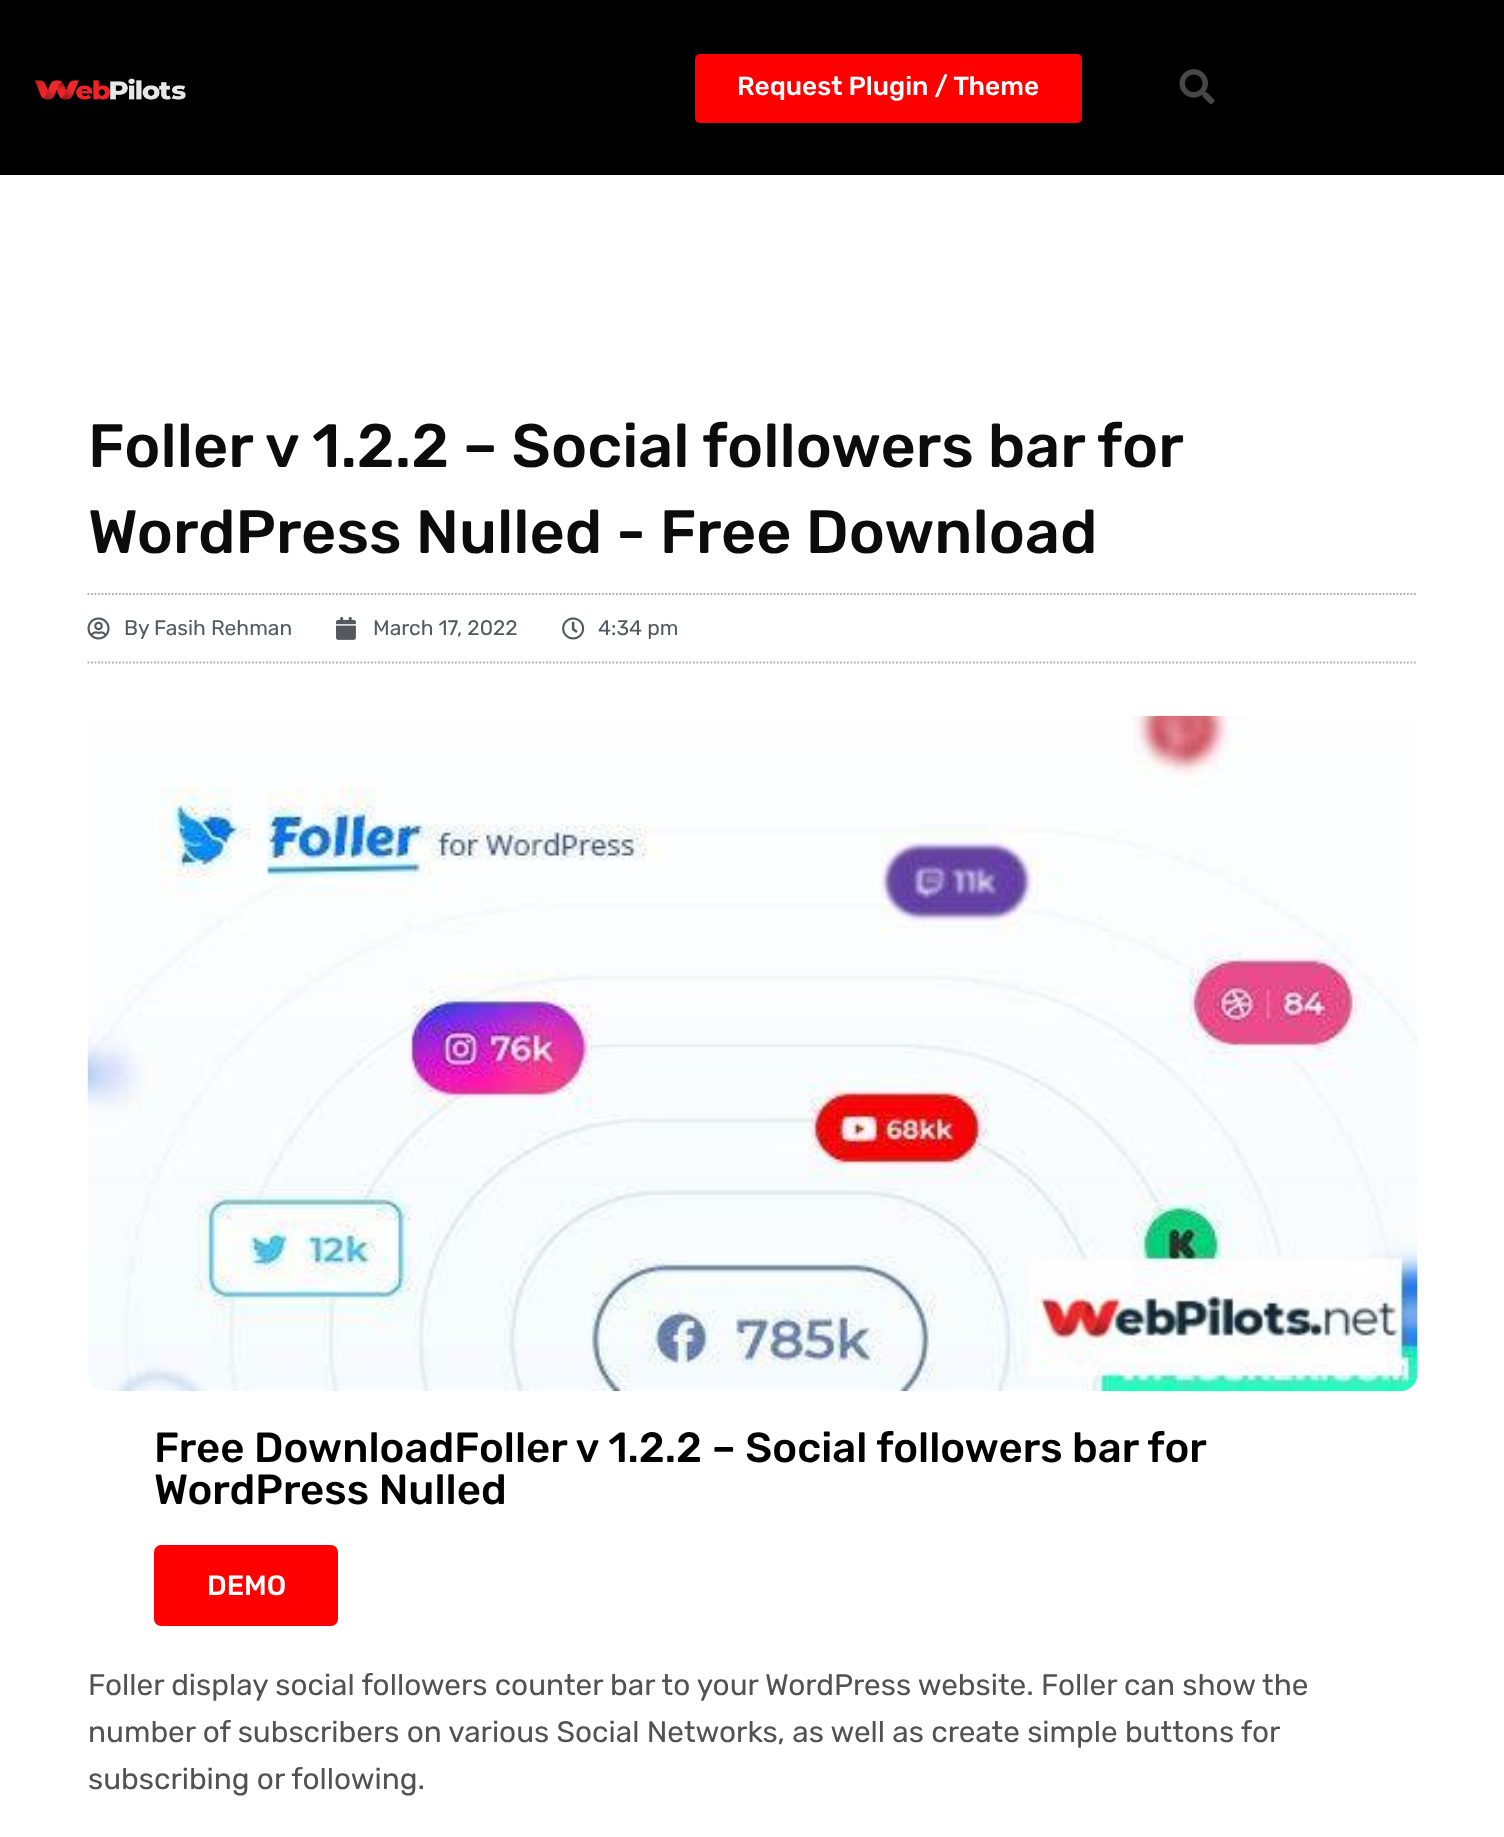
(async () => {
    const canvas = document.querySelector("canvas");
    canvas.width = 1504;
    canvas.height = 1837;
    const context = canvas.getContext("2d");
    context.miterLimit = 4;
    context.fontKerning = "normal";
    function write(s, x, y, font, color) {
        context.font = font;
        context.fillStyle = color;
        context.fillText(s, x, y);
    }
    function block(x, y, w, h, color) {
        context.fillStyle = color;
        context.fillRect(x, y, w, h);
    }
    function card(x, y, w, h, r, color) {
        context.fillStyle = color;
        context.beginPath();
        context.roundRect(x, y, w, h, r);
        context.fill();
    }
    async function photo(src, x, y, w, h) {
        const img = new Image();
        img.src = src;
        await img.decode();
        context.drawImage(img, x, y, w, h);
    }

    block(0, 0, 1504, 1837, "rgb(255, 255, 255)");
    block(0, 0, 1504, 175, "rgb(0, 0, 0)");
    await photo("media/1.png", 35, 78, 151, 22);
    card(695, 54, 387, 69, 5, "rgb(255, 0, 0)");
    write("Request Plugin / Theme", 737, 95, "500 26.25px Rubik", "rgb(255, 255, 255)");
    await photo("media/2.png", 1179, 69, 36, 35);
    context.wordSpacing = "-0.25px";
    write("Foller v 1.2.2 – Social followers bar for", 88, 467, "500 61.25px Rubik", "rgb(12, 12, 12)");
    context.wordSpacing = "0px";
    write("WordPress Nulled - Free Download", 88, 553, "500 61.25px Rubik", "rgb(12, 12, 12)");
    context.beginPath();
    context.moveTo(87.5, 594);
    context.lineTo(1417.5, 594);
    context.strokeStyle = "rgb(175, 175, 175)";
    context.lineWidth = 1.8;
    context.setLineDash([1.75, 1.75]);
    context.stroke();
    context.beginPath();
    context.moveTo(87.5, 662.5);
    context.lineTo(1417.5, 662.5);
    context.stroke();
    await photo("media/3.png", 87, 617, 23, 23);
    write("By", 124, 635, "21px Rubik", "rgb(84, 89, 95)");
    write("Fasih Rehman", 154, 635, "21px Rubik", "rgb(84, 89, 95)");
    await photo("media/4.png", 336, 617, 20, 23);
    write("March 17, 2022", 373, 635, "21px Rubik", "rgb(84, 89, 95)");
    await photo("media/5.png", 562, 617, 23, 23);
    write("4:34 pm", 598, 635, "21px Rubik", "rgb(84, 89, 95)");
    await photo("media/6.png", 87, 715, 1331, 677);
    write("Free DownloadFoller v 1.2.2 – Social followers bar for", 154, 1462, "500 42px Rubik", "rgb(0, 0, 0)");
    write("WordPress Nulled", 154, 1504, "500 42px Rubik", "rgb(0, 0, 0)");
    card(154, 1545, 184, 81, 7, "rgb(255, 0, 0)");
    write("DEMO", 207, 1595, "500 28px Rubik", "rgb(255, 255, 255)");
    write("Foller display social followers counter bar to your WordPress website. Foller can show the", 88, 1695, "29.75px Rubik", "rgb(82, 82, 82)");
    write("number of subscribers on various Social Networks, as well as create simple buttons for", 88, 1742, "29.75px Rubik", "rgb(82, 82, 82)");
    write("subscribing or following.", 88, 1789, "29.75px Rubik", "rgb(82, 82, 82)");
})();
